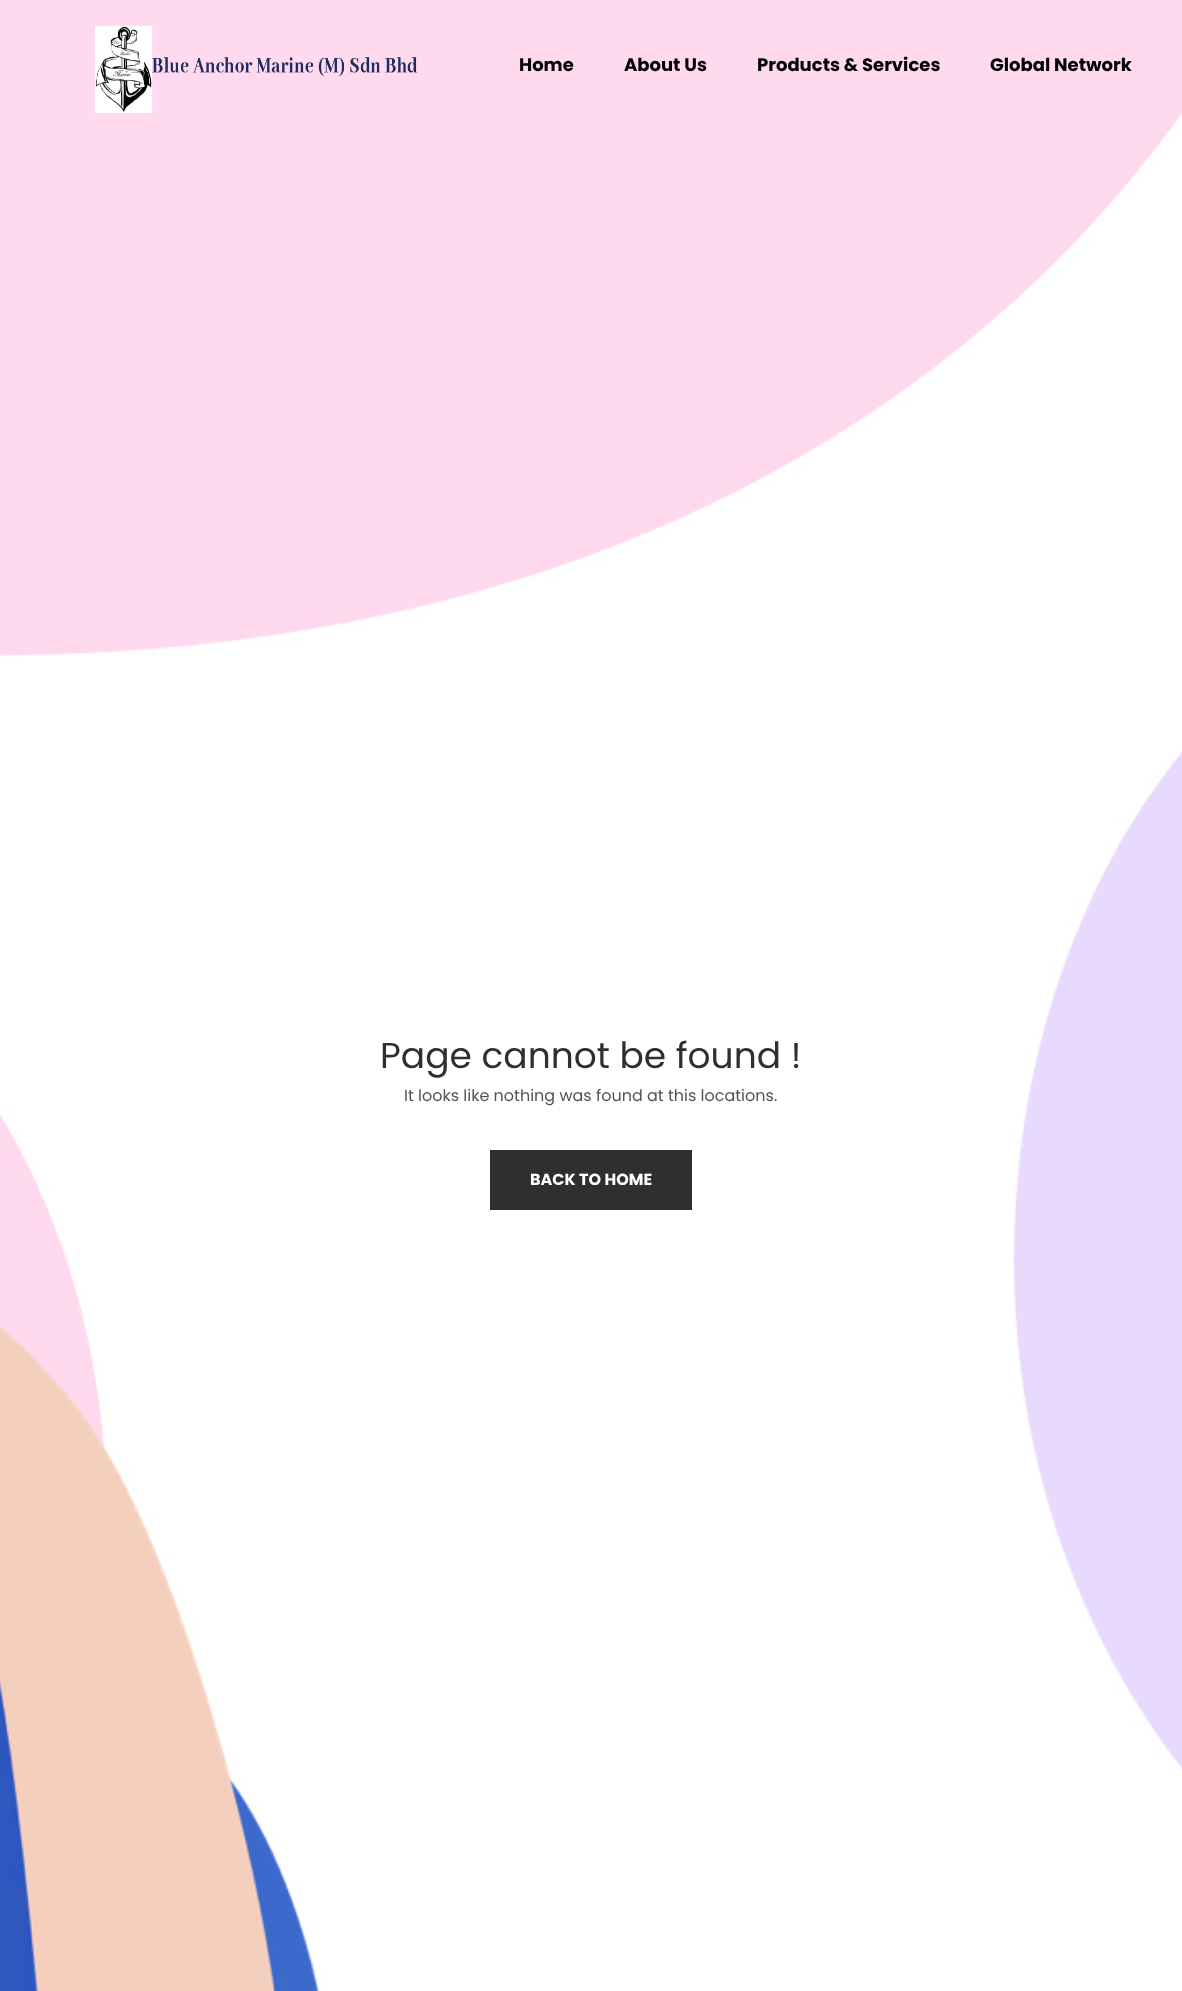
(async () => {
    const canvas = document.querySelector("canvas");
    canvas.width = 1182;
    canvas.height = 1991;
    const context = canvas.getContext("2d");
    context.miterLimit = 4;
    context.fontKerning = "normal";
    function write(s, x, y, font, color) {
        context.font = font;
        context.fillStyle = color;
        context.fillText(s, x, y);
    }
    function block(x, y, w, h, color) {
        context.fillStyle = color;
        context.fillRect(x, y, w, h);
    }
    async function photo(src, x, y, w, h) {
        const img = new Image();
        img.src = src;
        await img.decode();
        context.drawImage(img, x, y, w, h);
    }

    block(0, 0, 1182, 1991, "rgb(255, 255, 255)");
    await photo("media/1.png", 0, 0, 1182, 1991);
    await photo("media/2.png", 95, 25, 323, 88);
    write("Home", 519, 71, "bold 18px Poppins", "rgb(0, 0, 0)");
    write("About Us", 624, 71, "bold 18px Poppins", "rgb(0, 0, 0)");
    write("Products & Services", 757, 71, "bold 18px Poppins", "rgb(0, 0, 0)");
    write("Global Network", 990, 71, "bold 18px Poppins", "rgb(0, 0, 0)");
    write("Page cannot be found !", 380, 1068, "36px Poppins", "rgb(47, 47, 47)");
    write("It looks like nothing was found at this locations.", 404, 1101, "16px Poppins", "rgb(83, 83, 83)");
    block(490, 1150, 202, 60, "rgb(47, 47, 47)");
    write("BACK TO HOME", 530, 1185, "bold 16px Poppins", "rgb(255, 255, 255)");
})();
